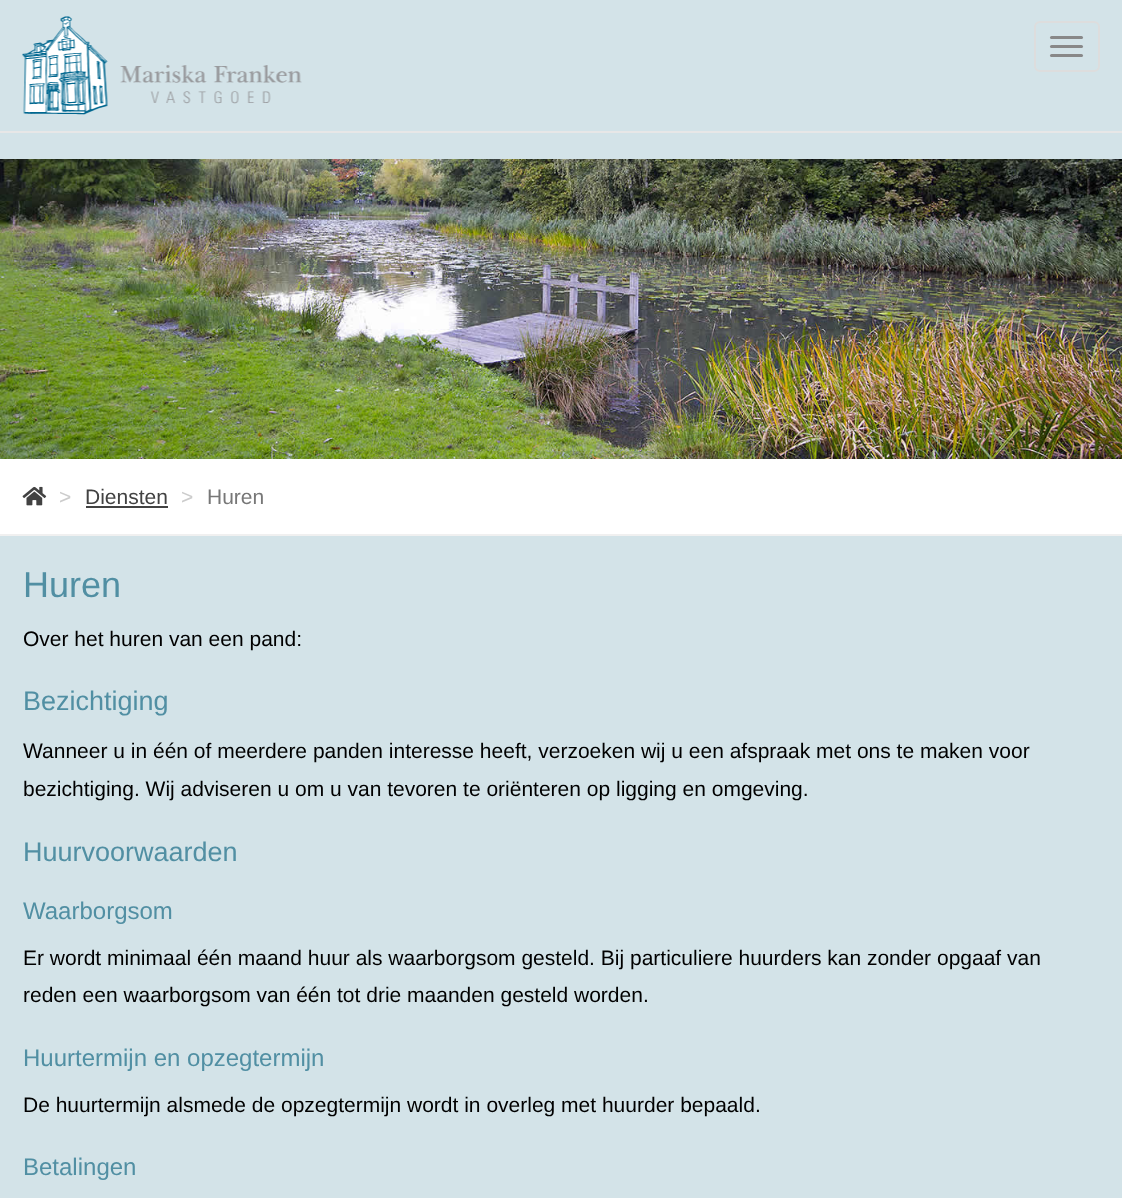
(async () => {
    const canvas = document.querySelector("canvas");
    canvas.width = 1122;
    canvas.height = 1198;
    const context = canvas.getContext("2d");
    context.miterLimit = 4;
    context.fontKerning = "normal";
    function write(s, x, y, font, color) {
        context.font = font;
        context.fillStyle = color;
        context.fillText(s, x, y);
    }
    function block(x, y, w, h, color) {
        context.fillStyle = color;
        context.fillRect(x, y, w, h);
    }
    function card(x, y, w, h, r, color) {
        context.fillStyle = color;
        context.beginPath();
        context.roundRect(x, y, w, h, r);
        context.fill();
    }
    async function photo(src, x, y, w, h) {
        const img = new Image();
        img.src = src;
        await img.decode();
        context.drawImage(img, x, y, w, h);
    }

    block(0, 0, 1122, 1198, "rgb(211, 227, 232)");
    block(0, 131, 1122, 2, "rgb(231, 231, 231)");
    await photo("media/1.png", 22, 16, 280, 99);
    context.beginPath();
    context.roundRect(1035, 22, 64, 49, 5);
    context.strokeStyle = "rgb(221, 221, 221)";
    context.lineWidth = 2;
    context.stroke();
    card(1050, 36, 33, 3, 1.5, "rgb(136, 136, 136)");
    card(1050, 45, 33, 3, 1.5, "rgb(136, 136, 136)");
    card(1050, 54, 33, 3, 1.5, "rgb(136, 136, 136)");
    await photo("media/2.png", 0, 159, 1122, 300);
    block(0, 459, 1122, 75, "rgb(255, 255, 255)");
    block(0, 534, 1122, 2, "rgb(240, 240, 240)");
    await photo("media/3.png", 22, 486, 25, 20);
    write(">", 59, 504, "21px Liberation Sans", "rgb(204, 204, 204)");
    write("Diensten", 85, 504, "21px Liberation Sans", "rgb(66, 66, 66)");
    block(86, 506, 82, 2, "rgb(66, 66, 66)");
    write(">", 181, 504, "21px Liberation Sans", "rgb(204, 204, 204)");
    write("Huren", 207, 504, "21px Liberation Sans", "rgb(119, 119, 119)");
    write("Huren", 23, 597, "36px Liberation Sans", "rgb(81, 143, 163)");
    write("Over het huren van een pand:", 23, 646, "21px Liberation Sans", "rgb(0, 0, 0)");
    write("Bezichtiging", 23, 710, "27px Liberation Sans", "rgb(81, 143, 163)");
    write("Wanneer u in één of meerdere panden interesse heeft, verzoeken wij u een afspraak met ons te maken voor", 23, 758, "21px Liberation Sans", "rgb(0, 0, 0)");
    write("bezichtiging. Wij adviseren u om u van tevoren te oriënteren op ligging en omgeving.", 23, 796, "21px Liberation Sans", "rgb(0, 0, 0)");
    write("Huurvoorwaarden", 23, 861, "27px Liberation Sans", "rgb(81, 143, 163)");
    write("Waarborgsom", 23, 919, "24px Liberation Sans", "rgb(81, 143, 163)");
    write("Er wordt minimaal één maand huur als waarborgsom gesteld. Bij particuliere huurders kan zonder opgaaf van", 23, 965, "21px Liberation Sans", "rgb(0, 0, 0)");
    write("reden een waarborgsom van één tot drie maanden gesteld worden.", 23, 1002, "21px Liberation Sans", "rgb(0, 0, 0)");
    write("Huurtermijn en opzegtermijn", 23, 1066, "24px Liberation Sans", "rgb(81, 143, 163)");
    write("De huurtermijn alsmede de opzegtermijn wordt in overleg met huurder bepaald.", 23, 1112, "21px Liberation Sans", "rgb(0, 0, 0)");
    write("Betalingen", 23, 1175, "24px Liberation Sans", "rgb(81, 143, 163)");
})();
